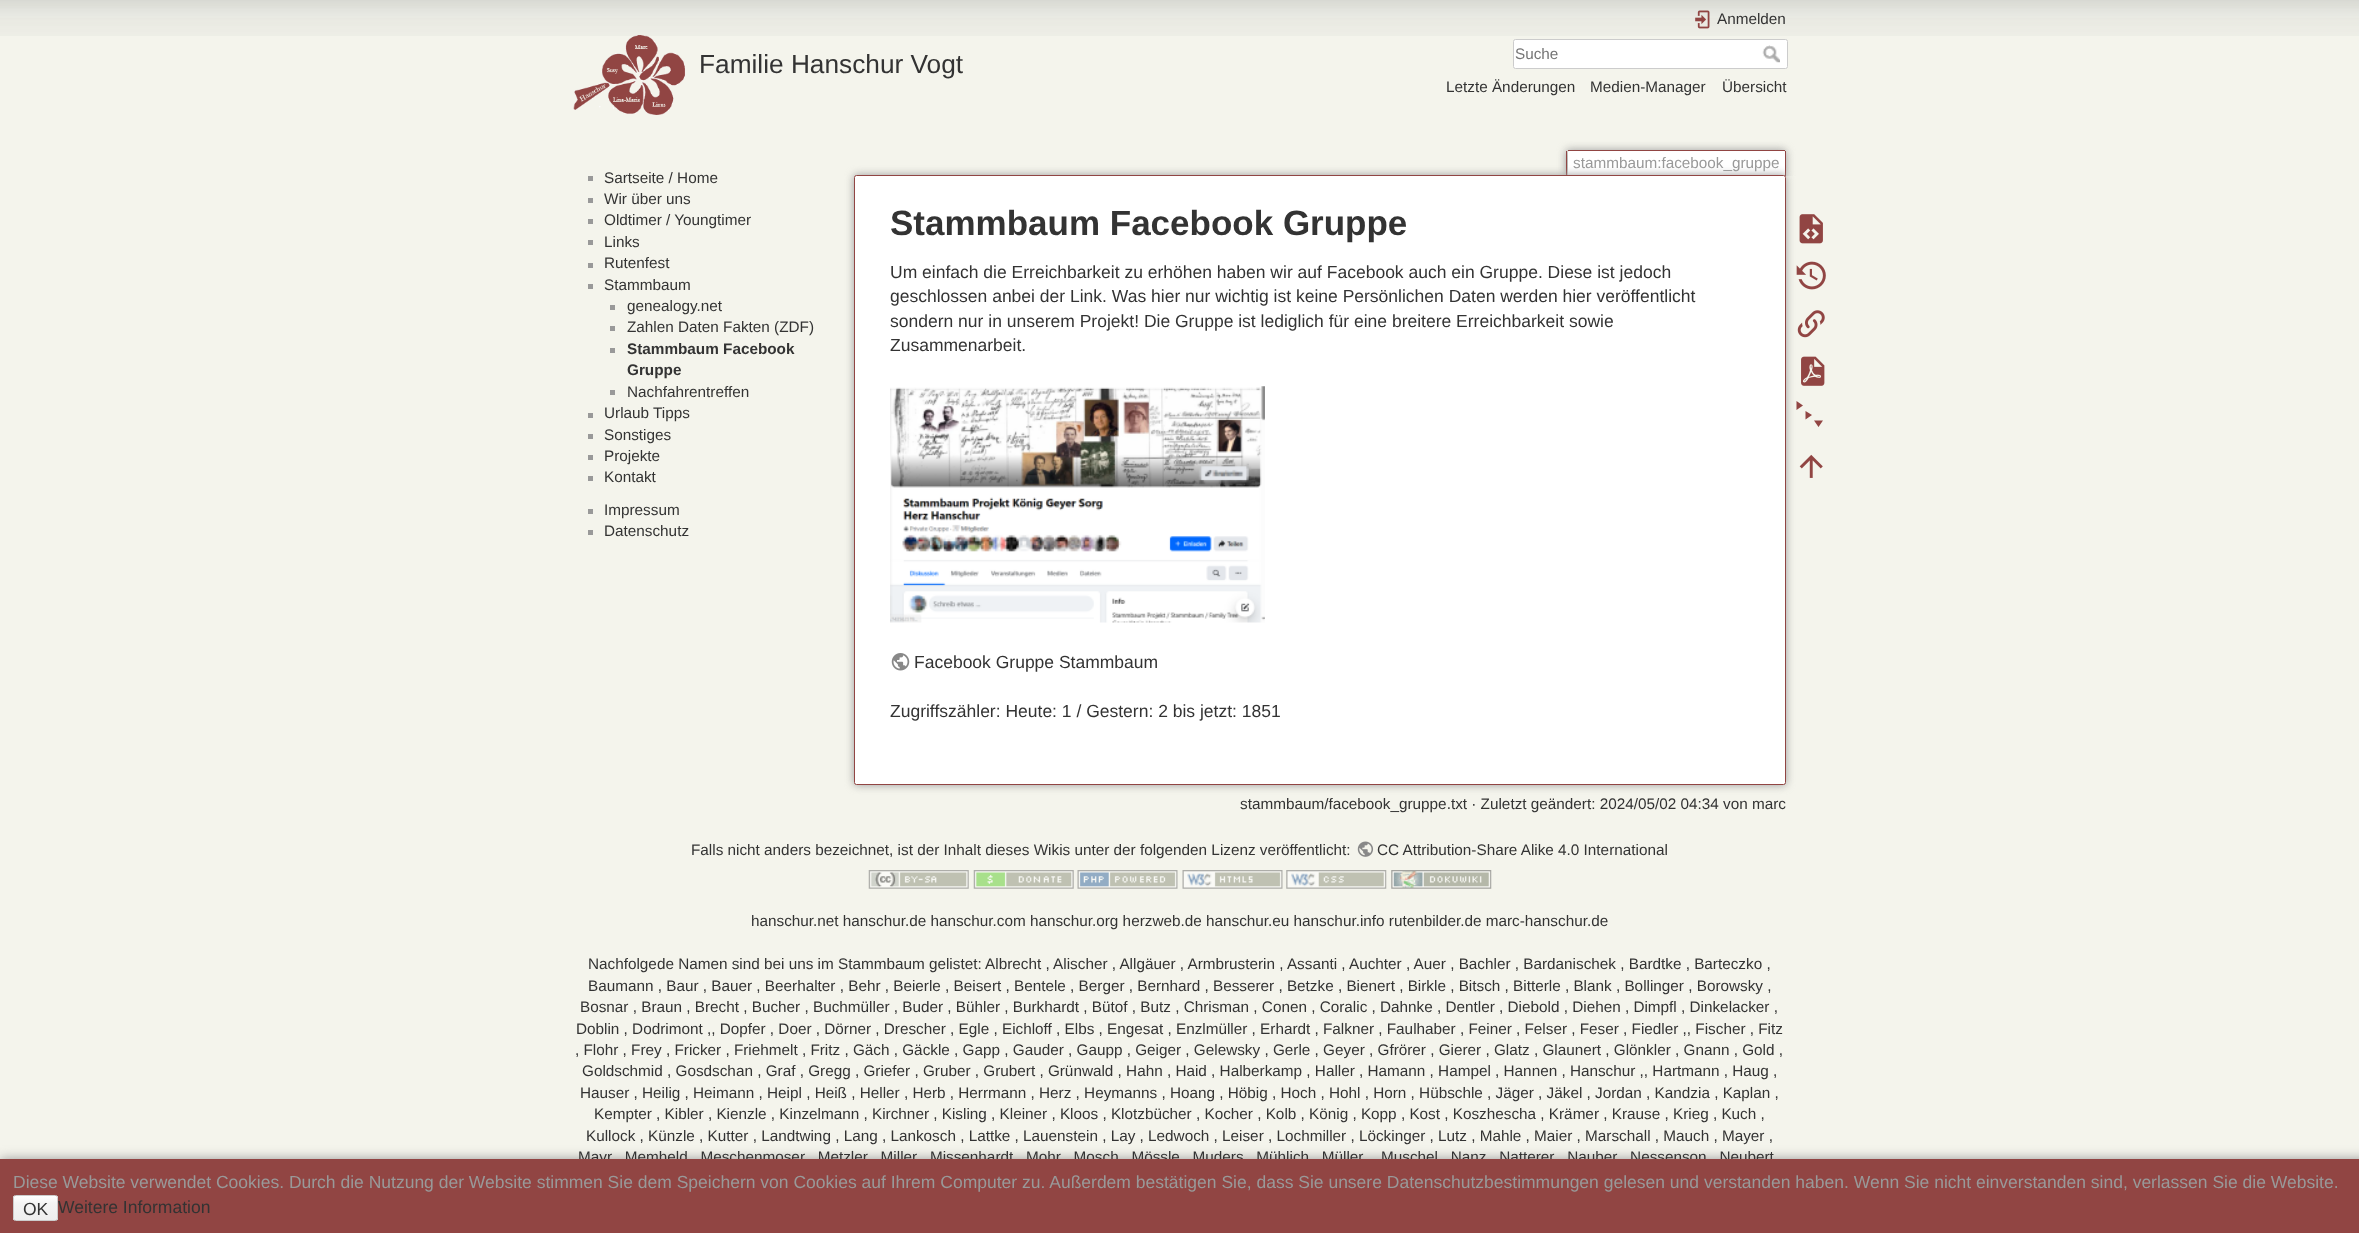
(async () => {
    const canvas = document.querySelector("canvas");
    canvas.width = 2359;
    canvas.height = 1233;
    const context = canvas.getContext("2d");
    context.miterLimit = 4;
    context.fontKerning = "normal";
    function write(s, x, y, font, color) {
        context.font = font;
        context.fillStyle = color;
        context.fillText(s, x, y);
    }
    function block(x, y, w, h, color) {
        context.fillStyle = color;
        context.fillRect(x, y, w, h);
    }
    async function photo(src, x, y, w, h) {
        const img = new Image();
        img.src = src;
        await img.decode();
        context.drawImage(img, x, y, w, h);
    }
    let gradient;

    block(0, 0, 2359, 1233, "rgb(244, 244, 236)");
    await photo("media/1.png", 0, 0, 2359, 36);
    await photo("media/2.png", 573, 35, 113, 80);
    write("Familie Hanschur Vogt", 699, 73, "26.25px Liberation Sans", "rgb(51, 51, 51)");
    await photo("media/3.png", 1695, 10, 15, 19);
    write("Anmelden", 1717, 24, "15.3px Liberation Sans", "rgb(51, 51, 51)");
    context.fillStyle = "rgb(255, 255, 255)";
    context.beginPath();
    context.roundRect(1513.5, 39.5, 274, 29, 2);
    context.fill();
    context.strokeStyle = "rgb(204, 204, 204)";
    context.stroke();
    write("Suche", 1515, 59, "15.3px Liberation Sans", "rgb(117, 117, 117)");
    await photo("media/4.png", 1762, 45, 18, 18);
    write("Letzte Änderungen", 1446, 92, "15.3px Liberation Sans", "rgb(51, 51, 51)");
    write("Medien-Manager", 1590, 92, "15.3px Liberation Sans", "rgb(51, 51, 51)");
    write("Übersicht", 1722, 92, "15.3px Liberation Sans", "rgb(51, 51, 51)");
    context.save();
    context.beginPath();
    context.rect(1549, 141, 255, 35);
    context.clip();
    context.fillStyle = "rgb(153, 153, 153)";
    context.filter = "blur(4px)";
    context.beginPath();
    context.roundRect(1566, 150, 220, 26, 2.5);
    context.fill();
    context.filter = "none";
    context.restore();
    context.fillStyle = "rgb(255, 255, 255)";
    context.beginPath();
    context.roundRect(1568, 151, 217, 25, [1, 1, 0, 0]);
    context.fill();
    block(1568, 150, 217, 1, "rgb(145, 69, 67)");
    block(1785, 151, 1, 25, "rgb(145, 69, 67)");
    block(1566, 151, 1, 25, "rgb(145, 69, 67)");
    write("stammbaum:facebook_gruppe", 1573, 168, "15.3px Liberation Sans", "rgb(153, 153, 153)");
    context.filter = "blur(4.5px)";
    context.beginPath();
    context.roundRect(854, 175, 932, 610, 2.5);
    context.fill();
    context.filter = "none";
    context.fillStyle = "rgb(255, 255, 255)";
    context.beginPath();
    context.roundRect(854.5, 175.5, 931, 609, 2);
    context.fill();
    context.strokeStyle = "rgb(145, 69, 67)";
    context.stroke();
    write("Stammbaum Facebook Gruppe", 890, 235, "bold 35px Liberation Sans", "rgb(51, 51, 51)");
    write("Um einfach die Erreichbarkeit zu erhöhen haben wir auf Facebook auch ein Gruppe. Diese ist jedoch", 890, 278, "17.5px Liberation Sans", "rgb(51, 51, 51)");
    write("geschlossen anbei der Link. Was hier nur wichtig ist keine Persönlichen Daten werden hier veröffentlicht", 890, 302, "17.5px Liberation Sans", "rgb(51, 51, 51)");
    write("sondern nur in unserem Projekt! Die Gruppe ist lediglich für eine breitere Erreichbarkeit sowie", 890, 327, "17.5px Liberation Sans", "rgb(51, 51, 51)");
    write("Zusammenarbeit.", 890, 351, "17.5px Liberation Sans", "rgb(51, 51, 51)");
    await photo("media/5.png", 890, 386, 375, 237);
    await photo("media/6.png", 891, 653, 19, 18);
    write("Facebook Gruppe Stammbaum", 914, 668, "17.5px Liberation Sans", "rgb(51, 51, 51)");
    write("Zugriffszähler: Heute: 1 / Gestern: 2 bis jetzt: 1851", 890, 717, "17.5px Liberation Sans", "rgb(51, 51, 51)");
    context.fillStyle = "rgb(153, 153, 153)";
    context.filter = "blur(6px)";
    context.beginPath();
    context.rect(0, 1159, 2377, 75);
    context.fill();
    context.filter = "none";
    write("Mayr , Memheld , Meschenmoser , Metzler , Miller , Missenhardt , Mohr , Mosch , Mössle , Muders , Mühlich , Müller", 578, 1162, "15.3px Liberation Sans", "rgb(51, 51, 51)");
    write("Muschel , Nanz , Natterer , Nauber , Nessenson , Neubert", 1381, 1162, "15.3px Liberation Sans", "rgb(51, 51, 51)");
    block(0, 1159, 2359, 74, "rgb(145, 69, 67)");
    write("Diese Website verwendet Cookies. Durch die Nutzung der Website stimmen Sie dem Speichern von Cookies auf Ihrem Computer zu. Außerdem bestätigen Sie, dass Sie unsere Datenschutzbestimmungen gelesen und verstanden haben. Wenn Sie nicht einverstanden sind, verlassen Sie die Website.", 13, 1188, "17.5px Liberation Sans", "rgb(153, 153, 153)");
    context.save();
    context.beginPath();
    context.roundRect(13, 1195, 45, 26, 2.5);
    context.clip();
    gradient = context.createLinearGradient(35, 1196, 35, 1220);
    gradient.addColorStop(0, "rgb(255, 255, 255)");
    gradient.addColorStop(0.3, "rgb(244, 244, 244)");
    gradient.addColorStop(0.99, "rgb(238, 238, 238)");
    gradient.addColorStop(0.99, "rgb(204, 204, 204)");
    context.fillStyle = gradient;
    context.fillRect(13, 1196, 45, 24);
    context.restore();
    context.beginPath();
    context.roundRect(13.5, 1195.5, 44, 25, 2);
    context.strokeStyle = "rgb(204, 204, 204)";
    context.stroke();
    write("OK", 23, 1215, "17.5px Liberation Sans", "rgb(51, 51, 51)");
    write("Weitere Information", 58, 1213, "17.5px Liberation Sans", "rgb(51, 51, 51)");
    write("stammbaum/facebook_gruppe.txt · Zuletzt geändert: 2024/05/02 04:34 von marc", 1240, 809, "15.3px Liberation Sans", "rgb(51, 51, 51)");
    block(588, 176, 5, 5, "rgb(153, 153, 153)");
    write("Sartseite / Home", 604, 183, "15.3px Liberation Sans", "rgb(51, 51, 51)");
    block(588, 198, 5, 5, "rgb(153, 153, 153)");
    write("Wir über uns", 604, 204, "15.3px Liberation Sans", "rgb(51, 51, 51)");
    block(588, 219, 5, 5, "rgb(153, 153, 153)");
    write("Oldtimer / Youngtimer", 604, 225, "15.3px Liberation Sans", "rgb(51, 51, 51)");
    block(588, 240, 5, 5, "rgb(153, 153, 153)");
    write("Links", 604, 247, "15.3px Liberation Sans", "rgb(51, 51, 51)");
    block(588, 263, 5, 5, "rgb(153, 153, 153)");
    write("Rutenfest", 604, 268, "15.3px Liberation Sans", "rgb(51, 51, 51)");
    block(588, 284, 5, 5, "rgb(153, 153, 153)");
    write("Stammbaum", 604, 290, "15.3px Liberation Sans", "rgb(51, 51, 51)");
    block(610, 305, 5, 5, "rgb(153, 153, 153)");
    write("genealogy.net", 627, 311, "15.3px Liberation Sans", "rgb(51, 51, 51)");
    block(610, 326, 5, 5, "rgb(153, 153, 153)");
    write("Zahlen Daten Fakten (ZDF)", 627, 332, "15.3px Liberation Sans", "rgb(51, 51, 51)");
    block(610, 348, 5, 5, "rgb(153, 153, 153)");
    write("Stammbaum Facebook", 627, 354, "bold 15.3px Liberation Sans", "rgb(51, 51, 51)");
    write("Gruppe", 627, 375, "bold 15.3px Liberation Sans", "rgb(51, 51, 51)");
    block(610, 390, 5, 5, "rgb(153, 153, 153)");
    write("Nachfahrentreffen", 627, 397, "15.3px Liberation Sans", "rgb(51, 51, 51)");
    block(588, 413, 5, 5, "rgb(153, 153, 153)");
    write("Urlaub Tipps", 604, 418, "15.3px Liberation Sans", "rgb(51, 51, 51)");
    block(588, 434, 5, 5, "rgb(153, 153, 153)");
    write("Sonstiges", 604, 440, "15.3px Liberation Sans", "rgb(51, 51, 51)");
    block(588, 455, 5, 5, "rgb(153, 153, 153)");
    write("Projekte", 604, 461, "15.3px Liberation Sans", "rgb(51, 51, 51)");
    block(588, 476, 5, 5, "rgb(153, 153, 153)");
    write("Kontakt", 604, 482, "15.3px Liberation Sans", "rgb(51, 51, 51)");
    block(588, 509, 5, 5, "rgb(153, 153, 153)");
    write("Impressum", 604, 515, "15.3px Liberation Sans", "rgb(51, 51, 51)");
    block(588, 530, 5, 5, "rgb(153, 153, 153)");
    write("Datenschutz", 604, 536, "15.3px Liberation Sans", "rgb(51, 51, 51)");
    await photo("media/7.png", 1799, 214, 24, 30);
    await photo("media/8.png", 1796, 261, 30, 29);
    await photo("media/9.png", 1797, 310, 28, 28);
    await photo("media/10.png", 1801, 356, 24, 30);
    context.fillStyle = "rgb(145, 69, 67)";
    context.beginPath();
    context.moveTo(1796.5, 401);
    context.lineTo(1803, 405.5);
    context.lineTo(1796.5, 410);
    context.closePath();
    context.moveTo(1805.5, 411);
    context.lineTo(1812, 415);
    context.lineTo(1805.5, 419.5);
    context.closePath();
    context.moveTo(1814, 420.5);
    context.lineTo(1823, 420.5);
    context.lineTo(1818.5, 427);
    context.closePath();
    context.fill();
    await photo("media/11.png", 1799, 454, 24, 24);
    write("Falls nicht anders bezeichnet, ist der Inhalt dieses Wikis unter der folgenden Lizenz veröffentlicht:", 691, 855, "15.3px Liberation Sans", "rgb(51, 51, 51)");
    await photo("media/12.png", 1357, 841, 17, 16);
    write("CC Attribution-Share Alike 4.0 International", 1377, 855, "15.3px Liberation Sans", "rgb(51, 51, 51)");
    await photo("media/13.png", 868, 870, 101, 19);
    await photo("media/14.png", 973, 870, 101, 19);
    await photo("media/15.png", 1077, 870, 101, 19);
    await photo("media/16.png", 1182, 870, 101, 19);
    await photo("media/17.png", 1286, 870, 101, 19);
    await photo("media/18.png", 1391, 870, 101, 19);
    write("hanschur.net hanschur.de hanschur.com hanschur.org herzweb.de hanschur.eu hanschur.info rutenbilder.de marc-hanschur.de", 751, 926, "15.3px Liberation Sans", "rgb(51, 51, 51)");
    write("Nachfolgede Namen sind bei uns im Stammbaum gelistet: Albrecht , Alischer , Allgäuer , Armbrusterin , Assanti , Auchter , Auer , Bachler , Bardanischek , Bardtke , Barteczko ,", 588, 969, "15.3px Liberation Sans", "rgb(51, 51, 51)");
    write("Baumann , Baur , Bauer , Beerhalter , Behr , Beierle , Beisert , Bentele , Berger , Bernhard , Besserer , Betzke , Bienert , Birkle , Bitsch , Bitterle , Blank , Bollinger , Borowsky ,", 588, 991, "15.3px Liberation Sans", "rgb(51, 51, 51)");
    write("Bosnar , Braun , Brecht , Bucher , Buchmüller , Buder , Bühler , Burkhardt , Bütof , Butz , Chrisman , Conen , Coralic , Dahnke , Dentler , Diebold , Diehen , Dimpfl , Dinkelacker ,", 580, 1012, "15.3px Liberation Sans", "rgb(51, 51, 51)");
    write("Doblin , Dodrimont ,, Dopfer , Doer , Dörner , Drescher , Egle , Eichloff , Elbs , Engesat , Enzlmüller , Erhardt , Falkner , Faulhaber , Feiner , Felser , Feser , Fiedler ,, Fischer , Fitz", 576, 1034, "15.3px Liberation Sans", "rgb(51, 51, 51)");
    write(", Flohr , Frey , Fricker , Friehmelt , Fritz , Gäch , Gäckle , Gapp , Gauder , Gaupp , Geiger , Gelewsky , Gerle , Geyer , Gfrörer , Gierer , Glatz , Glaunert , Glönkler , Gnann , Gold ,", 575, 1055, "15.3px Liberation Sans", "rgb(51, 51, 51)");
    write("Goldschmid , Gosdschan , Graf , Gregg , Griefer , Gruber , Grubert , Grünwald , Hahn , Haid , Halberkamp , Haller , Hamann , Hampel , Hannen , Hanschur ,, Hartmann , Haug ,", 582, 1076, "15.3px Liberation Sans", "rgb(51, 51, 51)");
    write("Hauser , Heilig , Heimann , Heipl , Heiß , Heller , Herb , Herrmann , Herz , Heymanns , Hoang , Höbig , Hoch , Hohl , Horn , Hübschle , Jäger , Jäkel , Jordan , Kandzia , Kaplan ,", 580, 1098, "15.3px Liberation Sans", "rgb(51, 51, 51)");
    write("Kempter , Kibler , Kienzle , Kinzelmann , Kirchner , Kisling , Kleiner , Kloos , Klotzbücher , Kocher , Kolb , König , Kopp , Kost , Koszhescha , Krämer , Krause , Krieg , Kuch ,", 594, 1119, "15.3px Liberation Sans", "rgb(51, 51, 51)");
    write("Kullock , Künzle , Kutter , Landtwing , Lang , Lankosch , Lattke , Lauenstein , Lay , Ledwoch , Leiser , Lochmiller , Löckinger , Lutz , Mahle , Maier , Marschall , Mauch , Mayer ,", 586, 1141, "15.3px Liberation Sans", "rgb(51, 51, 51)");
})();
